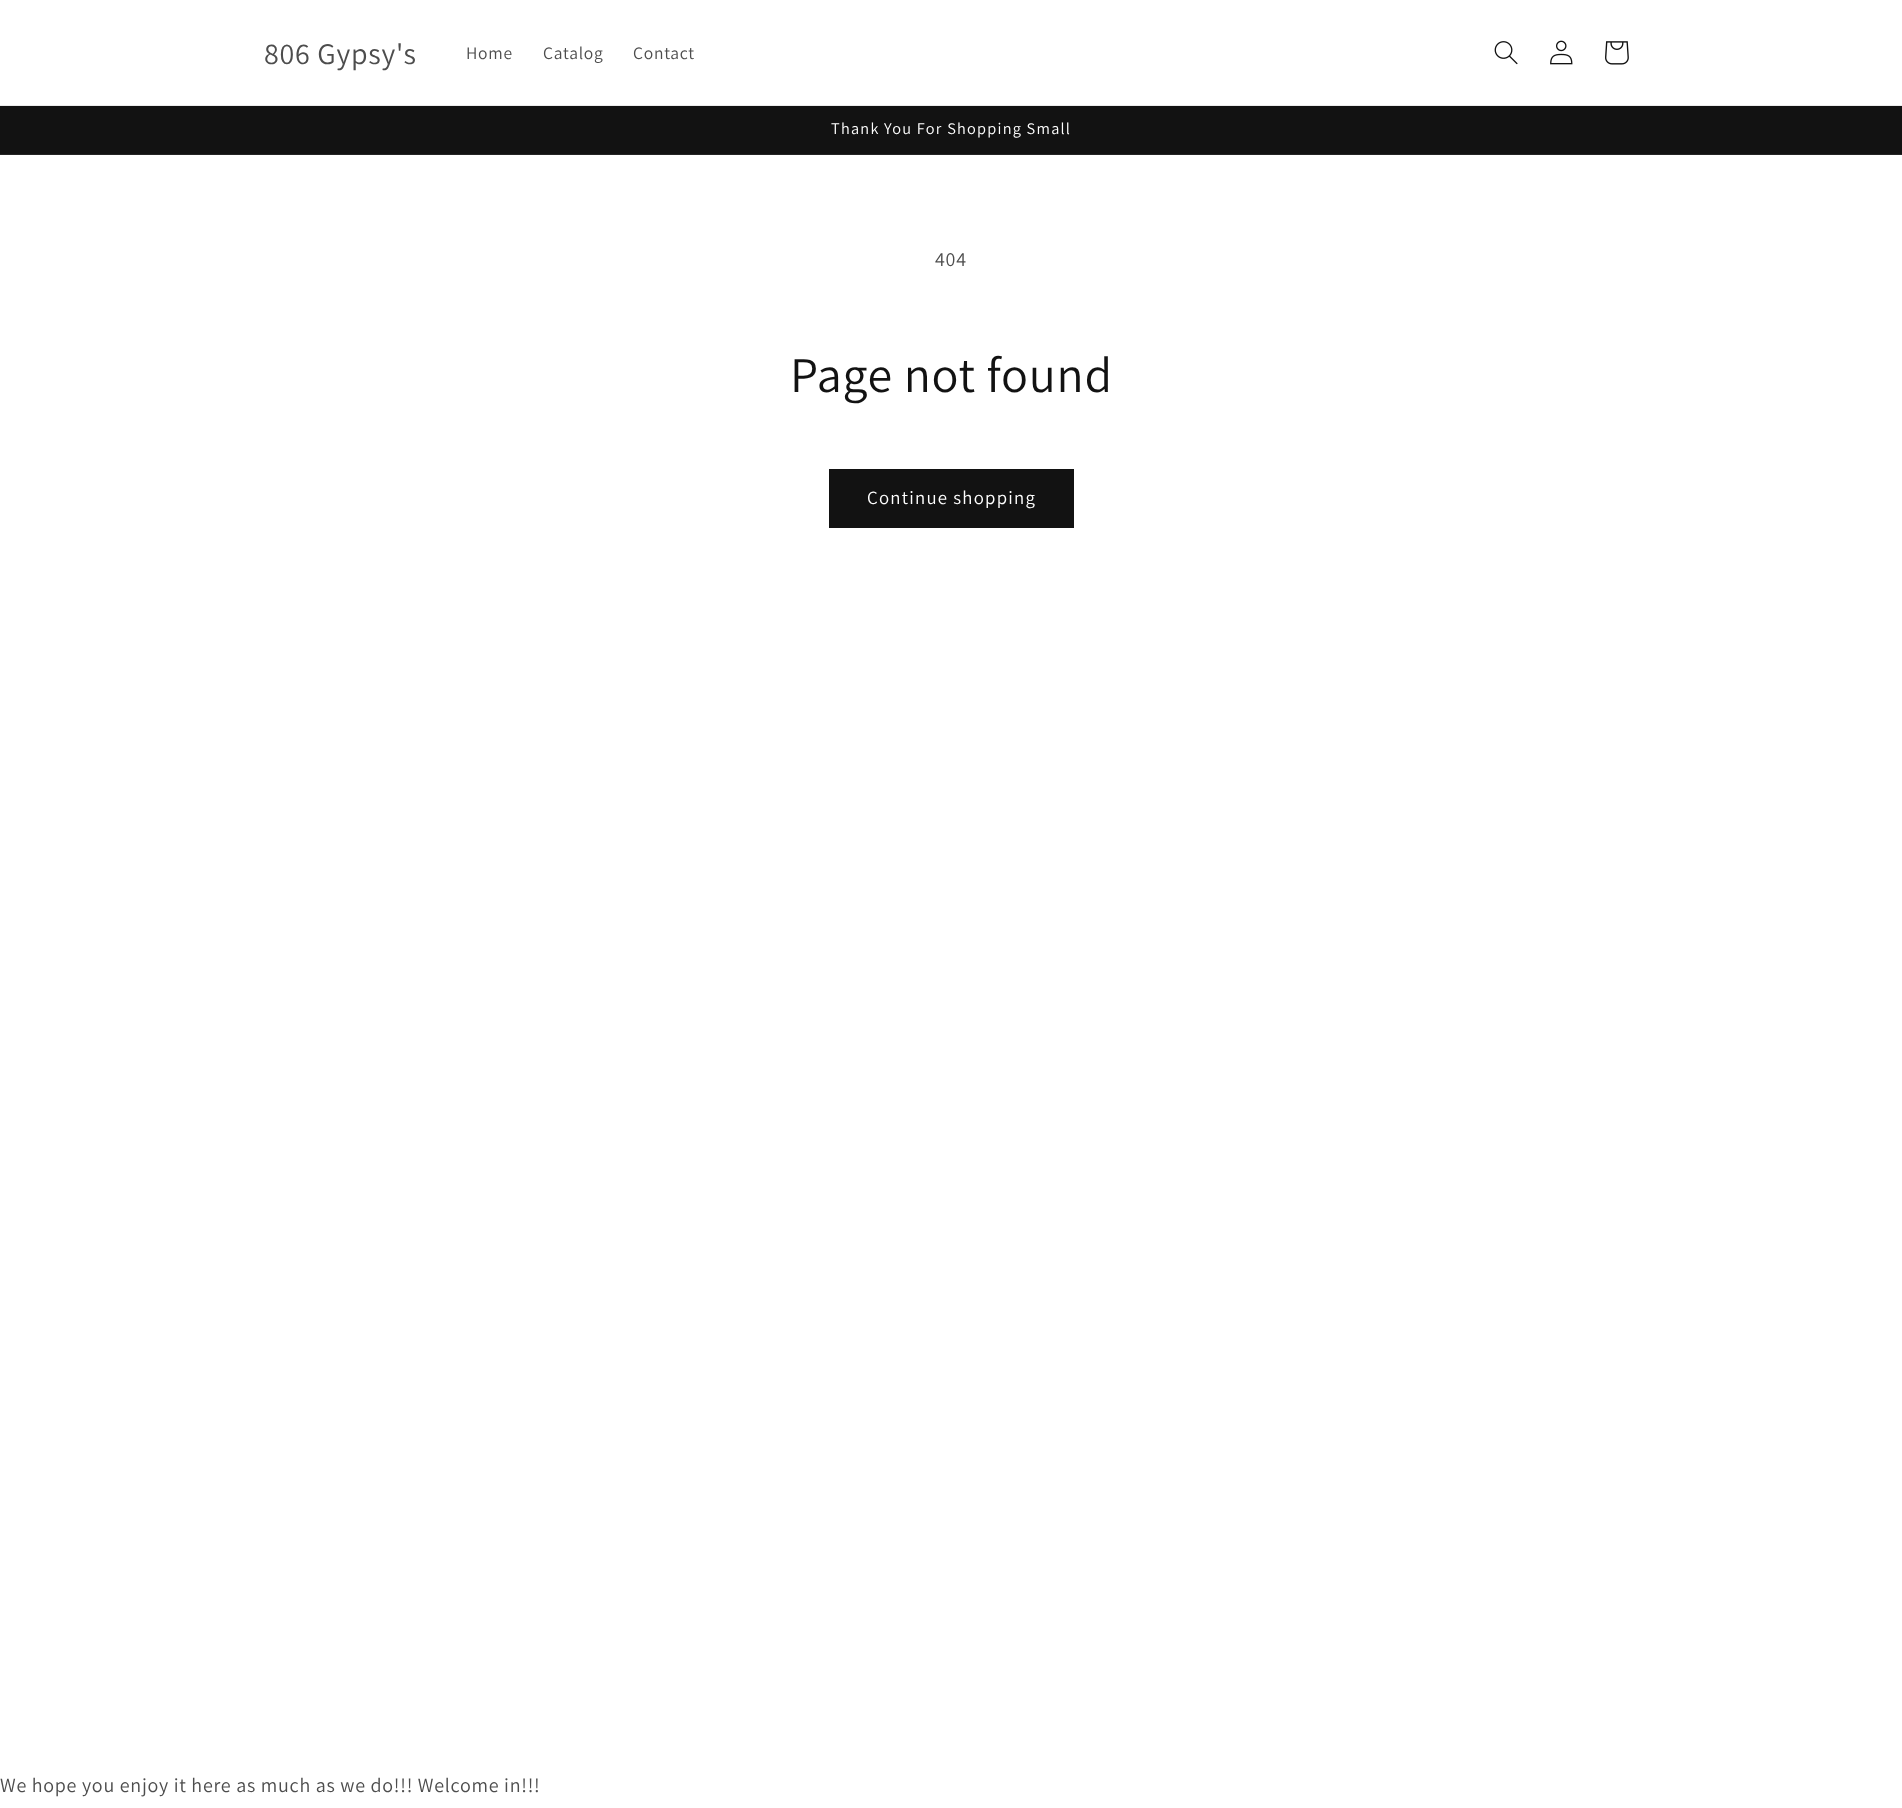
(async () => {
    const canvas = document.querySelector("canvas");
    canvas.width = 1902;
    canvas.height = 1808;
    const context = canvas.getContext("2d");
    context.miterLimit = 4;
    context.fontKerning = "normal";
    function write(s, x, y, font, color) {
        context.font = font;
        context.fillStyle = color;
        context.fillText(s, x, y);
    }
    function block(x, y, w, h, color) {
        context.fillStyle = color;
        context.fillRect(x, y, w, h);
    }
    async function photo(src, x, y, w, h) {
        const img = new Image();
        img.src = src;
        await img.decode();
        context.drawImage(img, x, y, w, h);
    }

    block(0, 0, 1902, 1808, "rgb(255, 255, 255)");
    block(0, 105, 1902, 1, "rgb(236, 236, 236)");
    context.letterSpacing = "0.75px";
    write("806 Gypsy's", 264, 64, "30px Assistant", "rgb(77, 77, 77)");
    write("Home", 466, 59, "17.5px Assistant", "rgb(77, 77, 77)");
    write("Catalog", 543, 59, "17.5px Assistant", "rgb(77, 77, 77)");
    write("Contact", 633, 59, "17.5px Assistant", "rgb(77, 77, 77)");
    await photo("media/1.png", 1494, 41, 24, 24);
    await photo("media/2.png", 1550, 40, 23, 25);
    await photo("media/3.png", 1605, 41, 24, 24);
    block(0, 106, 1902, 48, "rgb(18, 18, 18)");
    block(0, 154, 1902, 1, "rgb(37, 37, 37)");
    context.letterSpacing = "1.25px";
    write("Thank You For Shopping Small", 831, 134, "16.25px Assistant", "rgb(255, 255, 255)");
    context.letterSpacing = "0.75px";
    write("404", 935, 266, "20px Assistant", "rgb(77, 77, 77)");
    write("Page not found", 790, 392, "50px Assistant", "rgb(18, 18, 18)");
    block(829, 469, 245, 59, "rgb(18, 18, 18)");
    context.letterSpacing = "1.25px";
    write("Continue shopping", 867, 504, "18.75px Assistant", "rgb(255, 255, 255)");
    context.letterSpacing = "0.75px";
    write("We hope you enjoy it here as much as we do!!! Welcome in!!!", 0, 1792, "20px Assistant", "rgb(77, 77, 77)");
})();
